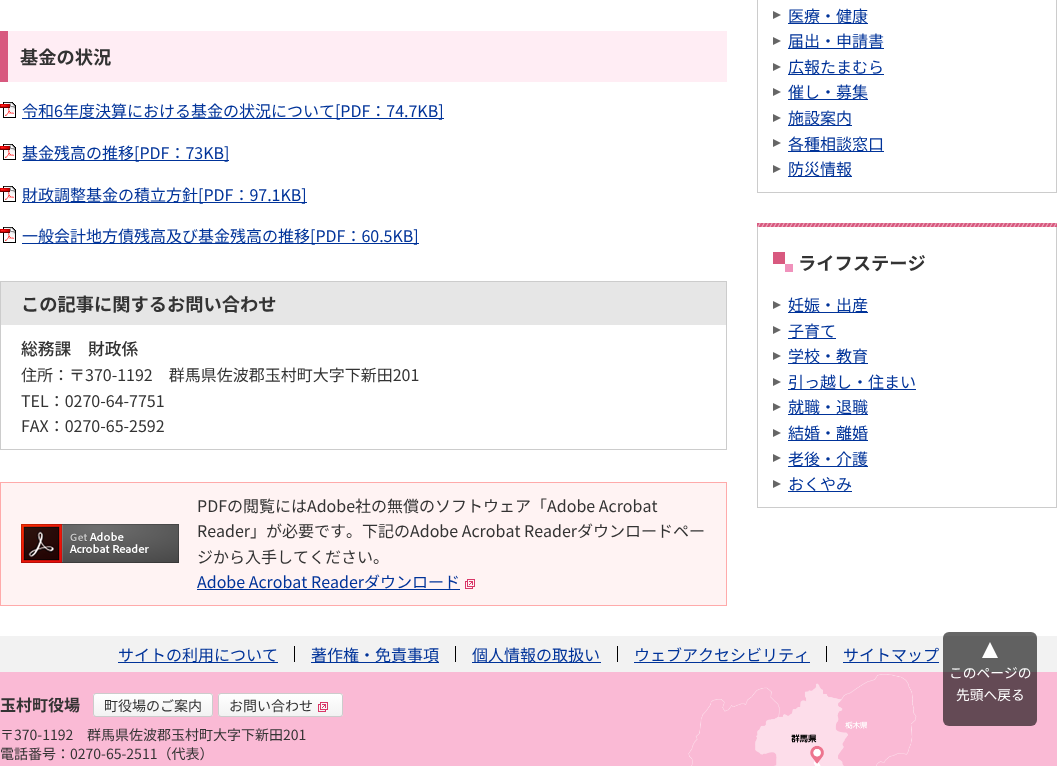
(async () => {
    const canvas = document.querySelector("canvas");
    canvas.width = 1057;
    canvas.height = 766;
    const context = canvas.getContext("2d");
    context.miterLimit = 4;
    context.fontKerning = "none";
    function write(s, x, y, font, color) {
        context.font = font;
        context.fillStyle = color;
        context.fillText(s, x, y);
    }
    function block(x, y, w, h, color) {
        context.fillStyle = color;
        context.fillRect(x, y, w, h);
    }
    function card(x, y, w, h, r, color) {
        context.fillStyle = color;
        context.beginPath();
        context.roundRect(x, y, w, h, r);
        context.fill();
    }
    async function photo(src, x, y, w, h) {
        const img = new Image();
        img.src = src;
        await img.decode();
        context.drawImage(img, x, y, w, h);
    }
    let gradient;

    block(0, 0, 1057, 766, "rgb(255, 255, 255)");
    block(8, 31, 719, 51, "rgb(255, 237, 244)");
    block(0, 31, 8, 51, "rgb(216, 89, 127)");
    write("基金の状況", 20, 64, "bold 18.25px Noto Sans JP", "rgb(51, 51, 51)");
    await photo("media/1.png", 0, 102, 16, 16);
    block(22, 118, 422, 1, "rgb(0, 51, 153)");
    write("令和6年度決算における基金の状況について[PDF：74.7KB]", 22, 117, "16px Noto Sans JP", "rgb(0, 51, 153)");
    await photo("media/1.png", 0, 144, 16, 16);
    block(22, 160, 207, 1, "rgb(0, 51, 153)");
    write("基金残高の推移[PDF：73KB]", 22, 159, "16px Noto Sans JP", "rgb(0, 51, 153)");
    await photo("media/1.png", 0, 186, 16, 16);
    block(22, 202, 285, 1, "rgb(0, 51, 153)");
    write("財政調整基金の積立方針[PDF：97.1KB]", 22, 201, "16px Noto Sans JP", "rgb(0, 51, 153)");
    await photo("media/1.png", 0, 227, 16, 16);
    block(22, 243, 397, 1, "rgb(0, 51, 153)");
    write("一般会計地方債残高及び基金残高の推移[PDF：60.5KB]", 22, 242, "16px Noto Sans JP", "rgb(0, 51, 153)");
    context.strokeStyle = "rgb(204, 204, 204)";
    context.strokeRect(0.5, 281.5, 726, 168);
    block(1, 282, 725, 43, "rgb(230, 230, 230)");
    write("この記事に関するお問い合わせ", 21, 311, "bold 18.25px Noto Sans JP", "rgb(51, 51, 51)");
    write("総務課　財政係", 21, 355, "500 16.75px Noto Sans JP", "rgb(51, 51, 51)");
    write("住所：〒370-1192　群馬県佐波郡玉村町大字下新田201", 21, 381, "16px Noto Sans JP", "rgb(51, 51, 51)");
    write("TEL：0270-64-7751", 21, 407, "16px Noto Sans JP", "rgb(51, 51, 51)");
    write("FAX：0270-65-2592", 21, 432, "16px Noto Sans JP", "rgb(51, 51, 51)");
    block(1, 483, 725, 122, "rgb(255, 243, 243)");
    await photo("media/2.png", 21, 524, 158, 39);
    context.strokeStyle = "rgb(255, 170, 170)";
    context.strokeRect(0.5, 482.5, 726, 123);
    write("PDFの閲覧にはAdobe社の無償のソフトウェア「Adobe Acrobat", 197, 512, "16px Noto Sans JP", "rgb(51, 51, 51)");
    write("Reader」が必要です。下記のAdobe Acrobat Readerダウンロードペー", 197, 537, "16px Noto Sans JP", "rgb(51, 51, 51)");
    write("ジから入手してください。", 197, 563, "16px Noto Sans JP", "rgb(51, 51, 51)");
    block(197, 589, 263, 1, "rgb(0, 51, 153)");
    write("Adobe Acrobat Readerダウンロード", 197, 588, "16px Noto Sans JP", "rgb(0, 51, 153)");
    await photo("media/3.png", 465, 579, 10, 10);
    block(1056, 0, 1, 193, "rgb(204, 204, 204)");
    block(757, 192, 300, 1, "rgb(204, 204, 204)");
    block(757, 0, 1, 193, "rgb(204, 204, 204)");
    context.fillStyle = "rgb(102, 102, 102)";
    context.beginPath();
    context.moveTo(773, 11);
    context.lineTo(773, 19);
    context.lineTo(781, 15);
    context.closePath();
    context.moveTo(773, 37);
    context.lineTo(773, 45);
    context.lineTo(781, 41);
    context.closePath();
    context.moveTo(773, 63);
    context.lineTo(773, 71);
    context.lineTo(781, 67);
    context.closePath();
    context.fill();
    block(788, 23, 80, 1, "rgb(0, 51, 153)");
    write("医療・健康", 788, 22, "16px Noto Sans JP", "rgb(0, 51, 153)");
    block(788, 48, 96, 1, "rgb(0, 51, 153)");
    write("届出・申請書", 788, 47, "16px Noto Sans JP", "rgb(0, 51, 153)");
    block(788, 74, 96, 1, "rgb(0, 51, 153)");
    write("広報たまむら", 788, 73, "16px Noto Sans JP", "rgb(0, 51, 153)");
    context.fillStyle = "rgb(102, 102, 102)";
    context.beginPath();
    context.moveTo(773, 88);
    context.lineTo(773, 96);
    context.lineTo(781, 92);
    context.closePath();
    context.moveTo(773, 114);
    context.lineTo(773, 122);
    context.lineTo(781, 118);
    context.closePath();
    context.moveTo(773, 139);
    context.lineTo(773, 147);
    context.lineTo(781, 143);
    context.closePath();
    context.fill();
    block(788, 99, 80, 1, "rgb(0, 51, 153)");
    write("催し・募集", 788, 98, "16px Noto Sans JP", "rgb(0, 51, 153)");
    block(788, 125, 64, 1, "rgb(0, 51, 153)");
    write("施設案内", 788, 124, "16px Noto Sans JP", "rgb(0, 51, 153)");
    block(788, 151, 96, 1, "rgb(0, 51, 153)");
    write("各種相談窓口", 788, 150, "16px Noto Sans JP", "rgb(0, 51, 153)");
    context.fillStyle = "rgb(102, 102, 102)";
    context.beginPath();
    context.moveTo(773, 165);
    context.lineTo(773, 173);
    context.lineTo(781, 169);
    context.closePath();
    context.fill();
    block(788, 176, 64, 1, "rgb(0, 51, 153)");
    write("防災情報", 788, 175, "16px Noto Sans JP", "rgb(0, 51, 153)");
    block(1056, 223, 1, 285, "rgb(204, 204, 204)");
    block(757, 507, 300, 1, "rgb(204, 204, 204)");
    block(757, 223, 1, 285, "rgb(204, 204, 204)");
    block(757, 223, 300, 4, "rgb(216, 89, 127)");
    await photo("media/4.png", 757, 223, 300, 4);
    block(785, 264, 8, 8, "rgb(240, 146, 188)");
    block(773, 252, 12, 12, "rgb(216, 89, 127)");
    write("ライフステージ", 798, 270, "bold 18.25px Noto Sans JP", "rgb(51, 51, 51)");
    context.fillStyle = "rgb(102, 102, 102)";
    context.beginPath();
    context.moveTo(773, 301);
    context.lineTo(773, 309);
    context.lineTo(781, 305);
    context.closePath();
    context.moveTo(773, 326);
    context.lineTo(773, 334);
    context.lineTo(781, 330);
    context.closePath();
    context.moveTo(773, 352);
    context.lineTo(773, 360);
    context.lineTo(781, 356);
    context.closePath();
    context.fill();
    block(788, 312, 80, 1, "rgb(0, 51, 153)");
    write("妊娠・出産", 788, 311, "16px Noto Sans JP", "rgb(0, 51, 153)");
    block(788, 338, 48, 1, "rgb(0, 51, 153)");
    write("子育て", 788, 337, "16px Noto Sans JP", "rgb(0, 51, 153)");
    block(788, 363, 80, 1, "rgb(0, 51, 153)");
    write("学校・教育", 788, 362, "16px Noto Sans JP", "rgb(0, 51, 153)");
    context.fillStyle = "rgb(102, 102, 102)";
    context.beginPath();
    context.moveTo(773, 378);
    context.lineTo(773, 386);
    context.lineTo(781, 382);
    context.closePath();
    context.moveTo(773, 403);
    context.lineTo(773, 411);
    context.lineTo(781, 407);
    context.closePath();
    context.moveTo(773, 429);
    context.lineTo(773, 437);
    context.lineTo(781, 433);
    context.closePath();
    context.fill();
    block(788, 389, 128, 1, "rgb(0, 51, 153)");
    write("引っ越し・住まい", 788, 388, "16px Noto Sans JP", "rgb(0, 51, 153)");
    block(788, 414, 80, 1, "rgb(0, 51, 153)");
    write("就職・退職", 788, 413, "16px Noto Sans JP", "rgb(0, 51, 153)");
    block(788, 440, 80, 1, "rgb(0, 51, 153)");
    write("結婚・離婚", 788, 439, "16px Noto Sans JP", "rgb(0, 51, 153)");
    context.fillStyle = "rgb(102, 102, 102)";
    context.beginPath();
    context.moveTo(773, 454);
    context.lineTo(773, 462);
    context.lineTo(781, 458);
    context.closePath();
    context.moveTo(773, 480);
    context.lineTo(773, 488);
    context.lineTo(781, 484);
    context.closePath();
    context.fill();
    block(788, 466, 80, 1, "rgb(0, 51, 153)");
    write("老後・介護", 788, 465, "16px Noto Sans JP", "rgb(0, 51, 153)");
    write("おくやみ", 788, 490, "16px Noto Sans JP", "rgb(0, 51, 153)");
    block(788, 491, 64, 1, "rgb(0, 51, 153)");
    block(0, 636, 1057, 36, "rgb(242, 242, 242)");
    block(294, 646, 1, 16, "rgb(0, 0, 0)");
    block(118, 662, 160, 1, "rgb(0, 51, 153)");
    write("サイトの利用について", 118, 661, "16px Noto Sans JP", "rgb(0, 51, 153)");
    block(455, 646, 1, 16, "rgb(0, 0, 0)");
    block(311, 662, 128, 1, "rgb(0, 51, 153)");
    write("著作権・免責事項", 311, 661, "16px Noto Sans JP", "rgb(0, 51, 153)");
    block(617, 646, 1, 16, "rgb(0, 0, 0)");
    block(472, 662, 129, 1, "rgb(0, 51, 153)");
    write("個人情報の取扱い", 472, 661, "16px Noto Sans JP", "rgb(0, 51, 153)");
    block(826, 646, 1, 16, "rgb(0, 0, 0)");
    block(634, 662, 176, 1, "rgb(0, 51, 153)");
    write("ウェブアクセシビリティ", 634, 661, "16px Noto Sans JP", "rgb(0, 51, 153)");
    block(843, 662, 96, 1, "rgb(0, 51, 153)");
    write("サイトマップ", 843, 661, "16px Noto Sans JP", "rgb(0, 51, 153)");
    block(0, 672, 1057, 94, "rgb(250, 186, 213)");
    await photo("media/5.png", 688, 674, 229, 92);
    write("玉村町役場", 0, 711, "bold 16px Noto Sans JP", "rgb(51, 51, 51)");
    context.save();
    context.beginPath();
    context.roundRect(93, 693, 120, 24, 3);
    context.clip();
    gradient = context.createLinearGradient(153, 694, 153, 716);
    gradient.addColorStop(0, "rgb(255, 255, 255)");
    gradient.addColorStop(1, "rgb(242, 242, 242)");
    context.fillStyle = gradient;
    context.fillRect(93, 694, 120, 22);
    context.restore();
    context.beginPath();
    context.roundRect(93.5, 693.5, 119, 23, 2.5);
    context.strokeStyle = "rgb(204, 204, 204)";
    context.stroke();
    write("町役場のご案内", 104, 711, "14px Noto Sans JP", "rgb(51, 51, 51)");
    context.save();
    context.beginPath();
    context.roundRect(218, 693, 125, 24, 3);
    context.clip();
    gradient = context.createLinearGradient(281, 694, 281, 716);
    gradient.addColorStop(0, "rgb(255, 255, 255)");
    gradient.addColorStop(1, "rgb(242, 242, 242)");
    context.fillStyle = gradient;
    context.fillRect(218, 694, 125, 22);
    context.restore();
    context.beginPath();
    context.roundRect(218.5, 693.5, 124, 23, 2.5);
    context.stroke();
    write("お問い合わせ", 229, 711, "14px Noto Sans JP", "rgb(51, 51, 51)");
    await photo("media/6.png", 318, 702, 10, 10);
    write("〒370-1192", 0, 740, "14px Noto Sans JP", "rgb(51, 51, 51)");
    write("群馬県佐波郡玉村町大字下新田201", 87, 740, "14px Noto Sans JP", "rgb(51, 51, 51)");
    write("電話番号：0270-65-2511（代表）", 0, 759, "14px Noto Sans JP", "rgb(51, 51, 51)");
    card(943, 632, 94, 94, 6, "rgba(0, 0, 0, 0.6)");
    context.fillStyle = "rgb(255, 255, 255)";
    context.beginPath();
    context.moveTo(998, 658);
    context.lineTo(982, 658);
    context.lineTo(990, 642);
    context.closePath();
    context.fill();
    write("このページの", 949, 678, "13.75px Noto Sans JP", "rgb(255, 255, 255)");
    write("先頭へ戻る", 956, 700, "13.75px Noto Sans JP", "rgb(255, 255, 255)");
})();
